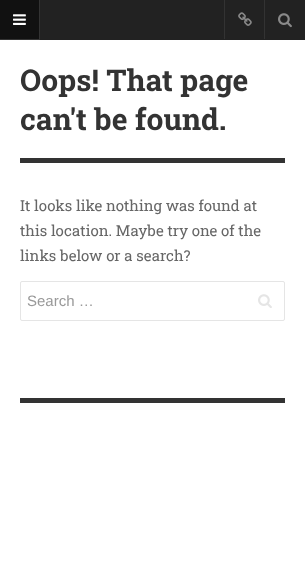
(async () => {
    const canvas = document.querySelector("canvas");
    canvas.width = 305;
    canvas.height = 561;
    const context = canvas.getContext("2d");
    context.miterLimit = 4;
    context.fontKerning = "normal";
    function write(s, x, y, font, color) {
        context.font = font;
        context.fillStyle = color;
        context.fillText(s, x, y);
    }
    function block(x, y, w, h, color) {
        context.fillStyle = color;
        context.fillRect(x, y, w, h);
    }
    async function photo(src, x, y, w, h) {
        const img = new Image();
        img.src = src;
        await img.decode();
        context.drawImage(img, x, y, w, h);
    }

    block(0, 0, 305, 561, "rgb(255, 255, 255)");
    block(40, 0, 265, 40, "rgb(34, 34, 34)");
    block(0, 39, 40, 1, "rgb(51, 51, 51)");
    block(0, 0, 39, 39, "rgb(17, 17, 17)");
    block(39, 0, 1, 39, "rgb(51, 51, 51)");
    await photo("media/1.png", 13, 14, 13, 11);
    block(224, 0, 1, 39, "rgb(51, 51, 51)");
    await photo("media/2.png", 238, 12, 14, 14);
    block(264, 0, 1, 39, "rgb(51, 51, 51)");
    await photo("media/3.png", 278, 13, 14, 15);
    block(20, 398, 265, 5, "rgb(51, 51, 51)");
    block(20, 158, 265, 5, "rgb(51, 51, 51)");
    write("Oops! That page", 20, 91, "bold 30px Roboto Slab", "rgb(51, 51, 51)");
    write("can't be found.", 20, 130, "bold 30px Roboto Slab", "rgb(51, 51, 51)");
    write("It looks like nothing was found at", 20, 211, "15px Roboto Slab", "rgb(102, 102, 102)");
    write("this location. Maybe try one of the", 20, 236, "15px Roboto Slab", "rgb(102, 102, 102)");
    write("links below or a search?", 20, 261, "15px Roboto Slab", "rgb(102, 102, 102)");
    context.beginPath();
    context.roundRect(20.5, 281.5, 264, 39, 1.5);
    context.strokeStyle = "rgb(229, 229, 229)";
    context.stroke();
    write("Search …", 27, 306, "15px Liberation Sans", "rgb(153, 153, 153)");
    await photo("media/4.png", 258, 294, 14, 14);
})();
